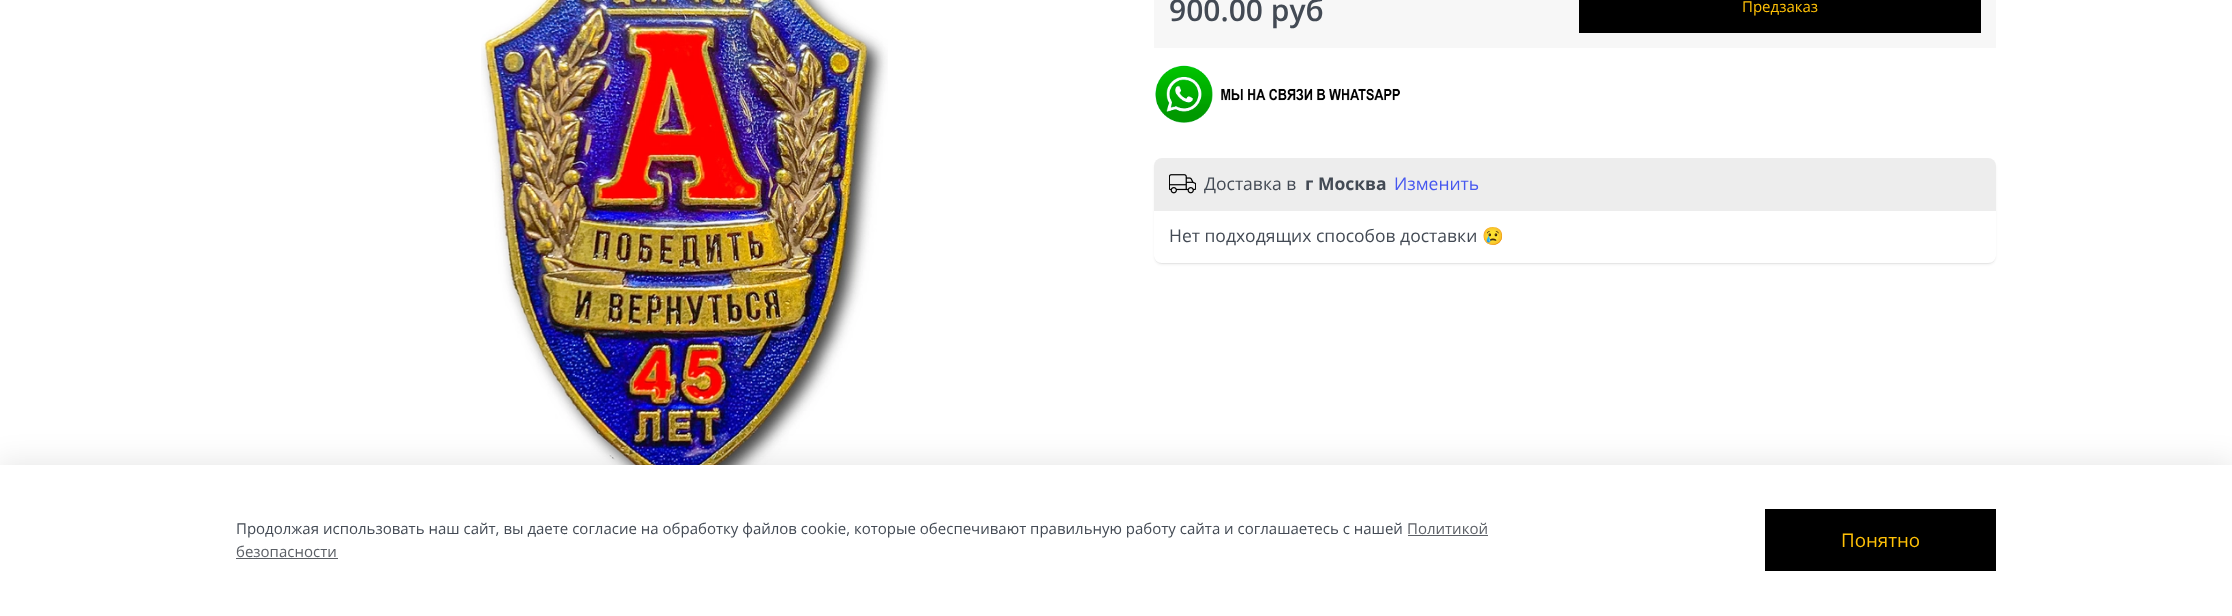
(async () => {
    const canvas = document.querySelector("canvas");
    canvas.width = 2232;
    canvas.height = 616;
    const context = canvas.getContext("2d");
    context.miterLimit = 4;
    context.fontKerning = "normal";
    function write(s, x, y, font, color) {
        context.font = font;
        context.fillStyle = color;
        context.fillText(s, x, y);
    }
    function block(x, y, w, h, color) {
        context.fillStyle = color;
        context.fillRect(x, y, w, h);
    }
    async function photo(src, x, y, w, h) {
        const img = new Image();
        img.src = src;
        await img.decode();
        context.drawImage(img, x, y, w, h);
    }

    block(0, 0, 2232, 616, "rgb(255, 255, 255)");
    await photo("media/1.png", 481, 0, 407, 465);
    block(1154, 0, 842, 48, "rgb(247, 247, 247)");
    write("900.00 руб", 1169, 21, "600 30px Open Sans", "rgb(67, 74, 84)");
    block(1579, 0, 402, 33, "rgb(0, 0, 0)");
    write("Предзаказ", 1742, 12, "15px Open Sans", "rgb(255, 193, 7)");
    await photo("media/2.png", 1155, 65, 245, 58);
    context.save();
    context.beginPath();
    context.moveTo(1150, 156);
    context.lineTo(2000, 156);
    context.lineTo(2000, 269);
    context.lineTo(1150, 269);
    context.closePath();
    context.moveTo(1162, 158);
    context.lineTo(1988, 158);
    context.bezierCurveTo(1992.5, 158, 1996, 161.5, 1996, 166);
    context.lineTo(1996, 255);
    context.bezierCurveTo(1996, 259.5, 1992.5, 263, 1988, 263);
    context.lineTo(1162, 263);
    context.bezierCurveTo(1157.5, 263, 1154, 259.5, 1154, 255);
    context.lineTo(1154, 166);
    context.bezierCurveTo(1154, 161.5, 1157.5, 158, 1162, 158);
    context.closePath();
    context.clip("evenodd");
    context.fillStyle = "rgba(0, 0, 0, 0.05)";
    context.filter = "blur(1px)";
    context.beginPath();
    context.roundRect(1154, 160, 842, 105, 8);
    context.fill();
    context.filter = "none";
    context.restore();
    context.save();
    context.beginPath();
    context.moveTo(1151, 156);
    context.lineTo(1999, 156);
    context.lineTo(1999, 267);
    context.lineTo(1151, 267);
    context.closePath();
    context.moveTo(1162, 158);
    context.lineTo(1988, 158);
    context.bezierCurveTo(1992.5, 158, 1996, 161.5, 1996, 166);
    context.lineTo(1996, 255);
    context.bezierCurveTo(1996, 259.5, 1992.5, 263, 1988, 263);
    context.lineTo(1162, 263);
    context.bezierCurveTo(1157.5, 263, 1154, 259.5, 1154, 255);
    context.lineTo(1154, 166);
    context.bezierCurveTo(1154, 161.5, 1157.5, 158, 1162, 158);
    context.closePath();
    context.clip("evenodd");
    context.fillStyle = "rgba(0, 0, 0, 0.05)";
    context.filter = "blur(0.5px)";
    context.beginPath();
    context.roundRect(1154, 159, 842, 105, 8);
    context.fill();
    context.filter = "none";
    context.restore();
    context.fillStyle = "rgb(237, 237, 237)";
    context.beginPath();
    context.roundRect(1154, 158, 842, 53, [8, 8, 0, 0]);
    context.fill();
    await photo("media/3.png", 1169, 174, 27, 20);
    write("Доставка в", 1204, 190, "17.5px Open Sans", "rgb(67, 74, 84)");
    write("г Москва", 1305, 190, "bold 17.5px Open Sans", "rgb(67, 74, 84)");
    write("Изменить", 1394, 190, "17.5px Open Sans", "rgb(70, 87, 239)");
    write("Нет подходящих способов доставки", 1169, 242, "17.5px Open Sans", "rgb(67, 74, 84)");
    write("😢", 1482, 242, "17.5px Noto Color Emoji", "rgb(67, 74, 84)");
    context.fillStyle = "rgba(0, 0, 0, 0.09)";
    context.filter = "blur(14.5px)";
    context.beginPath();
    context.rect(-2, 461, 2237, 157);
    context.fill();
    context.filter = "none";
    block(0, 465, 2232, 151, "rgb(255, 255, 255)");
    write("Продолжая использовать наш сайт, вы даете согласие на обработку файлов cookie, которые обеспечивают правильную работу сайта и соглашаетесь с нашей", 236, 534, "15px Open Sans", "rgb(67, 74, 84)");
    write("Политикой", 1407, 534, "15px Open Sans", "rgb(91, 95, 101)");
    block(1408, 535, 80, 1, "rgb(91, 95, 101)");
    write("безопасности", 236, 557, "15px Open Sans", "rgb(91, 95, 101)");
    block(236, 558, 102, 1, "rgb(91, 95, 101)");
    block(1765, 509, 231, 62, "rgb(0, 0, 0)");
    write("Понятно", 1841, 547, "18.75px Open Sans", "rgb(255, 193, 7)");
})();
